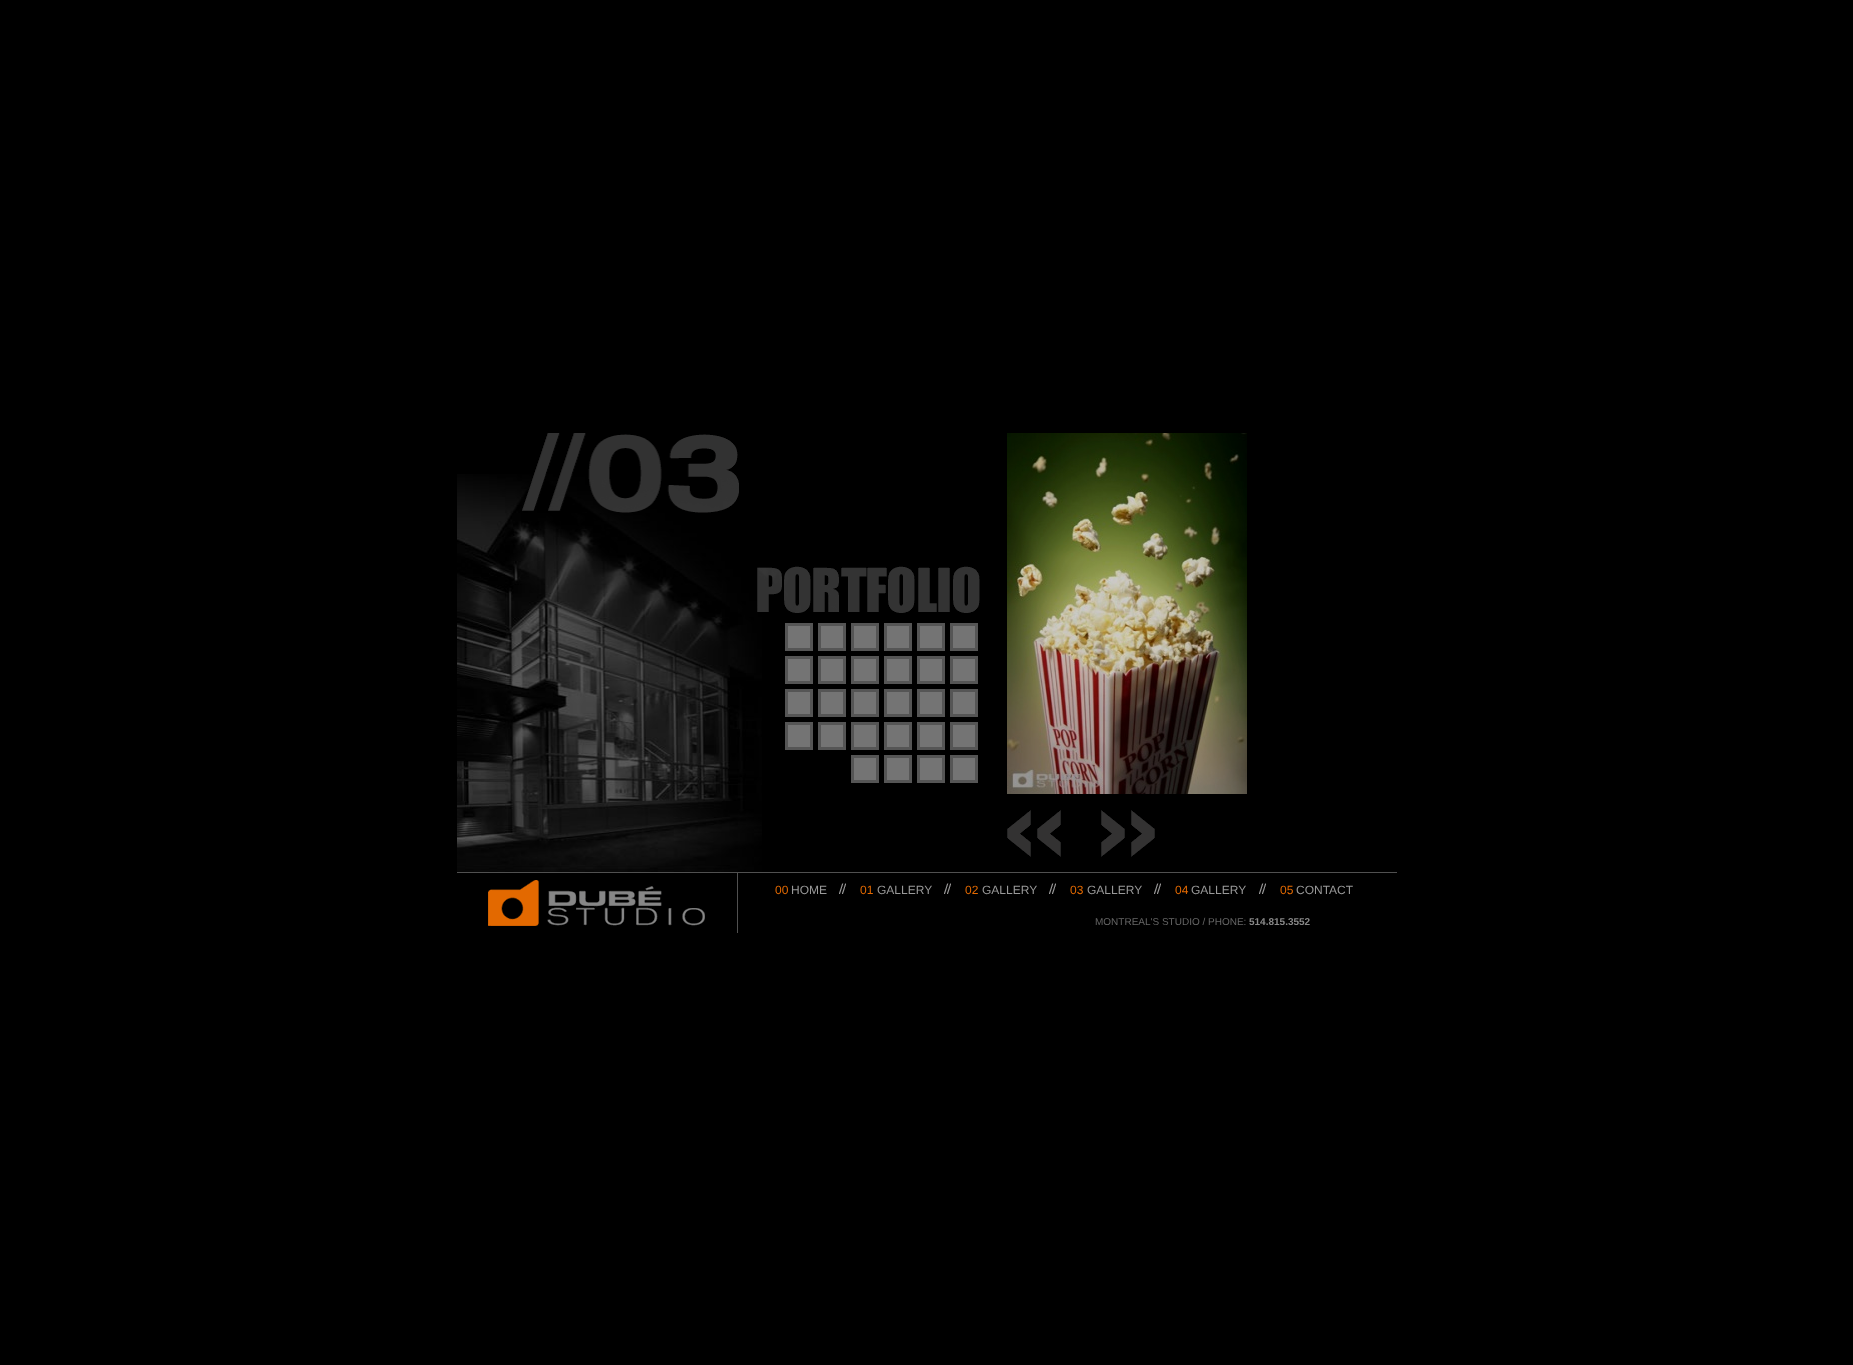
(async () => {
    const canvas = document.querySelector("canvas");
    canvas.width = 1853;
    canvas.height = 1365;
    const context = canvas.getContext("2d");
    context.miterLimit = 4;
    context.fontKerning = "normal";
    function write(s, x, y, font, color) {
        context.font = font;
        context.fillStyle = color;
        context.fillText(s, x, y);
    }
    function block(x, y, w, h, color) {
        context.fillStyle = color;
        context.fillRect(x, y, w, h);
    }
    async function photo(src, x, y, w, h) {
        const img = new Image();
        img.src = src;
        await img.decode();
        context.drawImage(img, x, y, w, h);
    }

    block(0, 0, 1853, 1365, "rgb(0, 0, 0)");
    await photo("media/1.png", 457, 474, 305, 398);
    await photo("media/2.png", 522, 433, 217, 80);
    await photo("media/3.png", 757, 566, 223, 47);
    await photo("media/5.png", 1124, 606, 21, 32);
    await photo("media/4.png", 1007, 433, 240, 361);
    await photo("media/6.png", 1007, 810, 54, 47);
    await photo("media/7.png", 1101, 810, 54, 47);
    context.fillStyle = "rgb(116, 116, 116)";
    context.beginPath();
    context.rect(786.5, 624.5, 25, 25);
    context.fill();
    context.strokeStyle = "rgb(85, 85, 85)";
    context.lineWidth = 3;
    context.stroke();
    context.beginPath();
    context.rect(819.5, 624.5, 25, 25);
    context.fill();
    context.stroke();
    context.beginPath();
    context.rect(852.5, 624.5, 25, 25);
    context.fill();
    context.stroke();
    context.beginPath();
    context.rect(885.5, 624.5, 25, 25);
    context.fill();
    context.stroke();
    context.beginPath();
    context.rect(918.5, 624.5, 25, 25);
    context.fill();
    context.stroke();
    context.beginPath();
    context.rect(951.5, 624.5, 25, 25);
    context.fill();
    context.stroke();
    context.beginPath();
    context.rect(786.5, 657.5, 25, 25);
    context.fill();
    context.stroke();
    context.beginPath();
    context.rect(819.5, 657.5, 25, 25);
    context.fill();
    context.stroke();
    context.beginPath();
    context.rect(852.5, 657.5, 25, 25);
    context.fill();
    context.stroke();
    context.beginPath();
    context.rect(885.5, 657.5, 25, 25);
    context.fill();
    context.stroke();
    context.beginPath();
    context.rect(918.5, 657.5, 25, 25);
    context.fill();
    context.stroke();
    context.beginPath();
    context.rect(951.5, 657.5, 25, 25);
    context.fill();
    context.stroke();
    context.beginPath();
    context.rect(786.5, 690.5, 25, 25);
    context.fill();
    context.stroke();
    context.beginPath();
    context.rect(819.5, 690.5, 25, 25);
    context.fill();
    context.stroke();
    context.beginPath();
    context.rect(852.5, 690.5, 25, 25);
    context.fill();
    context.stroke();
    context.beginPath();
    context.rect(885.5, 690.5, 25, 25);
    context.fill();
    context.stroke();
    context.beginPath();
    context.rect(918.5, 690.5, 25, 25);
    context.fill();
    context.stroke();
    context.beginPath();
    context.rect(951.5, 690.5, 25, 25);
    context.fill();
    context.stroke();
    context.beginPath();
    context.rect(786.5, 723.5, 25, 25);
    context.fill();
    context.stroke();
    context.beginPath();
    context.rect(819.5, 723.5, 25, 25);
    context.fill();
    context.stroke();
    context.beginPath();
    context.rect(852.5, 723.5, 25, 25);
    context.fill();
    context.stroke();
    context.beginPath();
    context.rect(885.5, 723.5, 25, 25);
    context.fill();
    context.stroke();
    context.beginPath();
    context.rect(918.5, 723.5, 25, 25);
    context.fill();
    context.stroke();
    context.beginPath();
    context.rect(951.5, 723.5, 25, 25);
    context.fill();
    context.stroke();
    context.beginPath();
    context.rect(852.5, 756.5, 25, 25);
    context.fill();
    context.stroke();
    context.beginPath();
    context.rect(885.5, 756.5, 25, 25);
    context.fill();
    context.stroke();
    context.beginPath();
    context.rect(918.5, 756.5, 25, 25);
    context.fill();
    context.stroke();
    context.beginPath();
    context.rect(951.5, 756.5, 25, 25);
    context.fill();
    context.stroke();
    block(457, 872, 940, 1, "rgb(80, 80, 80)");
    await photo("media/8.png", 488, 880, 217, 46);
    block(737, 873, 1, 60, "rgb(80, 80, 80)");
    await photo("media/9.png", 839, 883, 7, 11);
    write("00", 775, 894, "12px Liberation Sans", "rgb(227, 105, 0)");
    write("HOME", 791, 894, "12px Liberation Sans", "rgb(153, 153, 153)");
    await photo("media/9.png", 944, 883, 7, 11);
    write("01", 860, 894, "12px Liberation Sans", "rgb(227, 105, 0)");
    write("GALLERY", 877, 894, "12px Liberation Sans", "rgb(153, 153, 153)");
    await photo("media/9.png", 1049, 883, 7, 11);
    write("02", 965, 894, "12px Liberation Sans", "rgb(227, 105, 0)");
    write("GALLERY", 982, 894, "12px Liberation Sans", "rgb(153, 153, 153)");
    await photo("media/9.png", 1154, 883, 7, 11);
    write("03", 1070, 894, "12px Liberation Sans", "rgb(227, 105, 0)");
    write("GALLERY", 1087, 894, "12px Liberation Sans", "rgb(153, 153, 153)");
    await photo("media/9.png", 1259, 883, 7, 11);
    write("04", 1175, 894, "12px Liberation Sans", "rgb(227, 105, 0)");
    write("GALLERY", 1191, 894, "12px Liberation Sans", "rgb(153, 153, 153)");
    write("05", 1280, 894, "12px Liberation Sans", "rgb(227, 105, 0)");
    write("CONTACT", 1296, 894, "12px Liberation Sans", "rgb(153, 153, 153)");
    write("MONTREAL'S STUDIO / PHONE:", 1095, 925, "10px Liberation Sans", "rgb(102, 102, 102)");
    write("514.815.3552", 1249, 925, "bold 10px Liberation Sans", "rgb(136, 136, 136)");
})();
